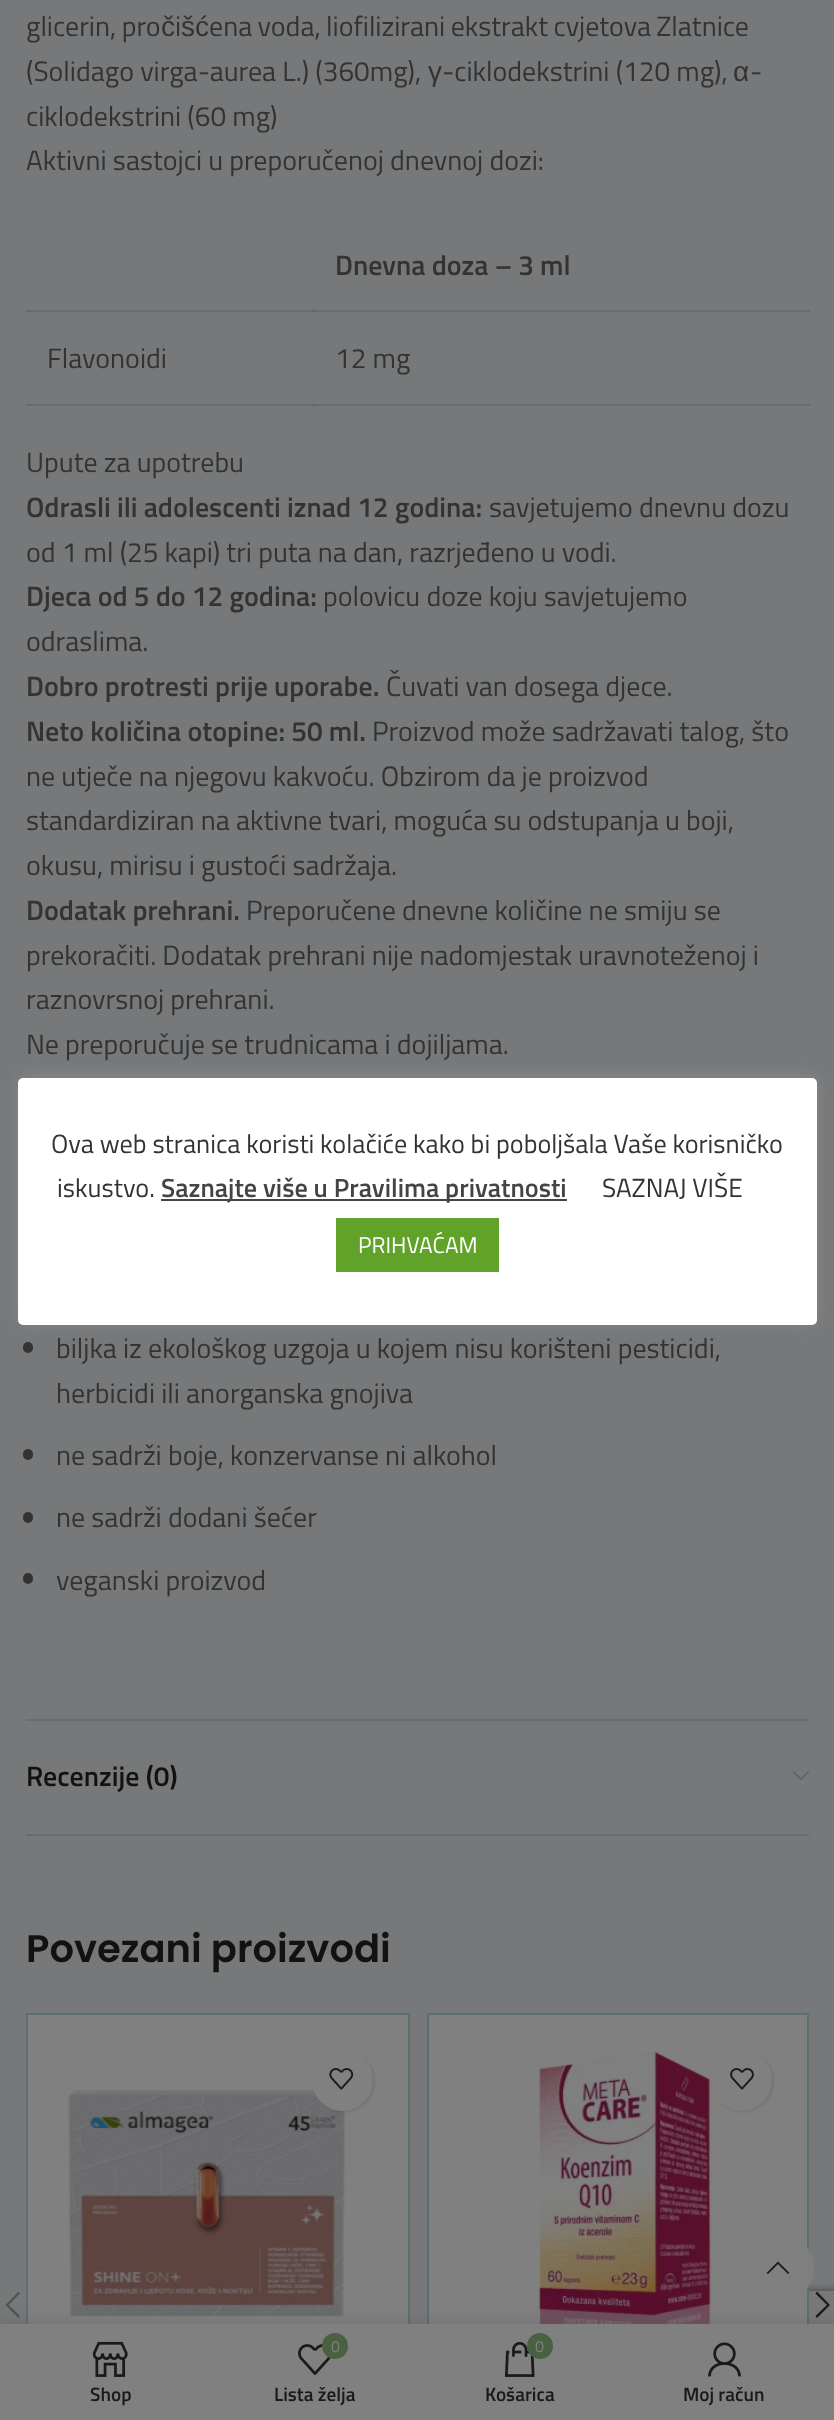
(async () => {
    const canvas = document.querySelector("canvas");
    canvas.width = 834;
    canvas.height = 2420;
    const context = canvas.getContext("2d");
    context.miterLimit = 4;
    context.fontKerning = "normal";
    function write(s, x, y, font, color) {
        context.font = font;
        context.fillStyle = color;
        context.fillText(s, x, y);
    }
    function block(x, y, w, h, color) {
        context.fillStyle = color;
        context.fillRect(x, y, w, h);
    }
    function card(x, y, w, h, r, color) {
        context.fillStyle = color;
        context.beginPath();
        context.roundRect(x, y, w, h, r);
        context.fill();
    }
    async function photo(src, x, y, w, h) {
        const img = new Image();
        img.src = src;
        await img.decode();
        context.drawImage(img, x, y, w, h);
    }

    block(0, 0, 834, 2420, "rgb(118, 120, 122)");
    block(26, 310, 289, 2, "rgb(105, 107, 108)");
    block(26, 404, 289, 2, "rgb(105, 107, 108)");
    block(26, 1719, 783, 2, "rgb(105, 108, 109)");
    context.wordSpacing = "-0.75px";
    write("glicerin, pro", 26, 36, "28px Titillium Web", "rgb(51, 51, 51)");
    context.wordSpacing = "0px";
    write("č", 161, 36, "28px Liberation Sans", "rgb(51, 51, 51)");
    write("i", 175, 36, "28px Titillium Web", "rgb(51, 51, 51)");
    write("šć", 181, 36, "28px Liberation Sans", "rgb(51, 51, 51)");
    context.wordSpacing = "-0.75px";
    write("ena voda, liofilizirani ekstrakt cvjetova Zlatnice", 209, 36, "28px Titillium Web", "rgb(51, 51, 51)");
    context.wordSpacing = "0px";
    write("(Solidago virga-aurea L.) (360mg),", 26, 81, "28px Titillium Web", "rgb(51, 51, 51)");
    write("γ", 428, 81, "28px Liberation Sans", "rgb(51, 51, 51)");
    write("-ciklodekstrini (120 mg),", 442, 81, "28px Titillium Web", "rgb(51, 51, 51)");
    write("α", 733, 81, "28px Liberation Sans", "rgb(51, 51, 51)");
    write("-", 750, 81, "28px Titillium Web", "rgb(51, 51, 51)");
    write("ciklodekstrini (60 mg)", 26, 126, "28px Titillium Web", "rgb(51, 51, 51)");
    write("Aktivni sastojci u preporučenoj dnevnoj dozi:", 26, 170, "28px Titillium Web", "rgb(51, 51, 51)");
    block(313, 310, 497, 2, "rgb(105, 108, 109)");
    block(313, 310, 2, 2, "rgb(94, 96, 97)");
    write("Dnevna doza – 3 ml", 335, 275, "600 28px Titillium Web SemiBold", "rgb(51, 51, 51)");
    write("Flavonoidi", 47, 368, "28px Titillium Web", "rgb(51, 51, 51)");
    block(313, 404, 497, 2, "rgb(105, 108, 109)");
    block(313, 404, 2, 2, "rgb(94, 96, 97)");
    write("12 mg", 335, 368, "28px Titillium Web", "rgb(51, 51, 51)");
    write("Upute za upotrebu", 26, 472, "28px Titillium Web", "rgb(51, 51, 51)");
    write("Odrasli ili adolescenti iznad 12 godina:", 26, 517, "600 28px Titillium Web SemiBold", "rgb(51, 51, 51)");
    write("savjetujemo dnevnu dozu", 489, 517, "28px Titillium Web", "rgb(51, 51, 51)");
    write("od 1 ml (25 kapi) tri puta na dan, razrjeđeno u vodi.", 26, 562, "28px Titillium Web", "rgb(51, 51, 51)");
    write("Djeca od 5 do 12 godina:", 26, 606, "600 28px Titillium Web SemiBold", "rgb(51, 51, 51)");
    write("polovicu doze koju savjetujemo", 323, 606, "28px Titillium Web", "rgb(51, 51, 51)");
    write("odraslima.", 26, 651, "28px Titillium Web", "rgb(51, 51, 51)");
    write("Dobro protresti prije uporabe.", 26, 696, "600 28px Titillium Web SemiBold", "rgb(51, 51, 51)");
    write("Čuvati van dosega djece.", 386, 696, "28px Titillium Web", "rgb(51, 51, 51)");
    write("Neto količina otopine: 50 ml.", 26, 741, "600 28px Titillium Web SemiBold", "rgb(51, 51, 51)");
    write("Proizvod može sadržavati talog, što", 372, 741, "28px Titillium Web", "rgb(51, 51, 51)");
    write("ne utječe na njegovu kakvoću. Obzirom da je proizvod", 26, 786, "28px Titillium Web", "rgb(51, 51, 51)");
    write("standardiziran na aktivne tvari, moguća su odstupanja u boji,", 26, 830, "28px Titillium Web", "rgb(51, 51, 51)");
    write("okusu, mirisu i gustoći sadržaja.", 26, 875, "28px Titillium Web", "rgb(51, 51, 51)");
    write("Dodatak prehrani.", 26, 920, "600 28px Titillium Web SemiBold", "rgb(51, 51, 51)");
    write("Preporučene dnevne količine ne smiju se", 246, 920, "28px Titillium Web", "rgb(51, 51, 51)");
    write("prekoračiti. Dodatak prehrani nije nadomjestak uravnoteženoj i", 26, 965, "28px Titillium Web", "rgb(51, 51, 51)");
    write("raznovrsnoj prehrani.", 26, 1009, "28px Titillium Web", "rgb(51, 51, 51)");
    write("Ne preporučuje se trudnicama i dojiljama.", 26, 1054, "28px Titillium Web", "rgb(51, 51, 51)");
    card(23, 1342, 10, 11, 5, "rgb(51, 51, 51)");
    write("biljka iz ekološkog uzgoja u kojem nisu korišteni pesticidi,", 56, 1358, "28px Titillium Web", "rgb(51, 51, 51)");
    write("herbicidi ili anorganska gnojiva", 56, 1403, "28px Titillium Web", "rgb(51, 51, 51)");
    card(23, 1449, 10, 11, 5, "rgb(51, 51, 51)");
    write("ne sadrži boje, konzervanse ni alkohol", 56, 1465, "28px Titillium Web", "rgb(51, 51, 51)");
    card(23, 1512, 10, 11, 5, "rgb(51, 51, 51)");
    write("ne sadrži dodani šećer", 56, 1527, "28px Titillium Web", "rgb(51, 51, 51)");
    card(23, 1573, 10, 11, 5, "rgb(51, 51, 51)");
    write("veganski proizvod", 56, 1590, "28px Titillium Web", "rgb(51, 51, 51)");
    block(26, 1834, 783, 2, "rgb(105, 108, 109)");
    write("Recenzije (0)", 26, 1786, "600 28px Titillium Web SemiBold", "rgb(18, 18, 18)");
    await photo("media/1.png", 793, 1771, 16, 9);
    write("Povezani proizvodi", 26, 1962, "600 38.5px Poppins", "rgb(18, 18, 18)");
    block(28, 2015, 380, 309, "rgb(128, 128, 128)");
    context.strokeStyle = "rgb(89, 113, 110)";
    context.lineWidth = 2;
    context.strokeRect(27, 2014, 382, 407);
    await photo("media/3.png", 68, 2090, 278, 227);
    context.fillStyle = "rgba(0, 0, 0, 0.1)";
    context.filter = "blur(1px)";
    context.beginPath();
    context.roundRect(313, 2051, 62, 61, 30.5);
    context.fill();
    context.filter = "none";
    card(312, 2049, 61, 62, 30.5, "rgb(128, 128, 128)");
    await photo("media/2.png", 329, 2068, 25, 22);
    context.save();
    context.beginPath();
    context.rect(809, 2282, 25, 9);
    context.clip();
    context.fillStyle = "rgb(64, 64, 64)";
    context.filter = "blur(4.5px)";
    context.beginPath();
    context.roundRect(712, 2291, 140, 105, 4);
    context.fill();
    context.filter = "none";
    context.restore();
    block(429, 2015, 378, 309, "rgb(128, 128, 128)");
    context.strokeRect(428, 2014, 380, 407);
    await photo("media/4.png", 538, 2051, 173, 273);
    context.fillStyle = "rgba(0, 0, 0, 0.1)";
    context.filter = "blur(1px)";
    context.beginPath();
    context.roundRect(712, 2051, 62, 61, 30.5);
    context.fill();
    context.filter = "none";
    card(711, 2049, 61, 62, 30.5, "rgb(128, 128, 128)");
    await photo("media/5.png", 730, 2068, 24, 22);
    context.fillStyle = "rgb(83, 83, 83)";
    context.beginPath();
    context.moveTo(20, 2293.5);
    context.lineTo(18.5, 2291.5);
    context.lineTo(5.5, 2305);
    context.lineTo(18.5, 2318);
    context.lineTo(20, 2316);
    context.lineTo(8.5, 2305);
    context.closePath();
    context.fill();
    context.fillStyle = "rgb(26, 26, 26)";
    context.beginPath();
    context.moveTo(815.5, 2293.5);
    context.lineTo(827, 2305);
    context.lineTo(815.5, 2316);
    context.lineTo(817, 2318);
    context.lineTo(830, 2305);
    context.lineTo(817, 2291.5);
    context.closePath();
    context.fill();
    context.fillStyle = "rgba(172, 171, 171, 0.3)";
    context.filter = "blur(9px)";
    context.beginPath();
    context.roundRect(18, 1076, 799, 247, 5);
    context.fill();
    context.filter = "none";
    card(18, 1078, 799, 247, 5, "rgb(255, 255, 255)");
    write("Ova web stranica koristi kolačiće kako bi poboljšala Vaše korisničko", 51, 1153, "26.25px Titillium Web", "rgb(51, 51, 51)");
    write("iskustvo.", 57, 1197, "26.25px Titillium Web", "rgb(51, 51, 51)");
    block(161, 1199, 406, 2, "rgb(68, 68, 68)");
    write("Saznajte više u Pravilima privatnosti", 161, 1197, "600 26.25px Titillium Web SemiBold", "rgb(68, 68, 68)");
    write("SAZNAJ VIŠE", 602, 1197, "26.25px Titillium Web", "rgb(51, 51, 51)");
    block(336, 1218, 163, 54, "rgb(97, 162, 41)");
    write("PRIHVAĆAM", 358, 1253, "22.75px Titillium Web", "rgb(255, 255, 255)");
    context.fillStyle = "rgba(128, 128, 128, 0.9)";
    context.beginPath();
    context.arc(779, 2268, 35, 0, Math.PI * 2);
    context.fill();
    context.fillStyle = "rgb(26, 26, 26)";
    context.beginPath();
    context.moveTo(788, 2274);
    context.lineTo(789.5, 2273);
    context.lineTo(778, 2261.5);
    context.lineTo(766.5, 2273);
    context.lineTo(768, 2274);
    context.lineTo(778, 2264);
    context.closePath();
    context.fill();
    context.fillStyle = "rgba(0, 0, 0, 0.12)";
    context.filter = "blur(8px)";
    context.beginPath();
    context.rect(0, 2324, 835, 96);
    context.fill();
    context.filter = "none";
    block(0, 2324, 834, 96, "rgb(128, 128, 128)");
    await photo("media/6.png", 92, 2341, 36, 36);
    write("Shop", 90, 2401, "600 19.25px Titillium Web SemiBold", "rgb(26, 26, 26)");
    await photo("media/7.png", 298, 2344, 33, 31);
    context.fillStyle = "rgb(73, 97, 64)";
    context.beginPath();
    context.arc(335, 2346, 13, 0, Math.PI * 2);
    context.fill();
    write("0", 331, 2352, "16px Titillium Web", "rgb(128, 128, 128)");
    write("Lista želja", 274, 2401, "600 19.25px Titillium Web SemiBold", "rgb(26, 26, 26)");
    await photo("media/8.png", 504, 2341, 31, 36);
    context.fillStyle = "rgb(73, 97, 64)";
    context.beginPath();
    context.arc(540, 2346, 13, 0, Math.PI * 2);
    context.fill();
    write("0", 535, 2352, "16px Titillium Web", "rgb(128, 128, 128)");
    write("Košarica", 485, 2401, "600 19.25px Titillium Web SemiBold", "rgb(26, 26, 26)");
    await photo("media/9.png", 708, 2342, 33, 35);
    write("Moj račun", 683, 2401, "600 19.25px Titillium Web SemiBold", "rgb(26, 26, 26)");
})();
